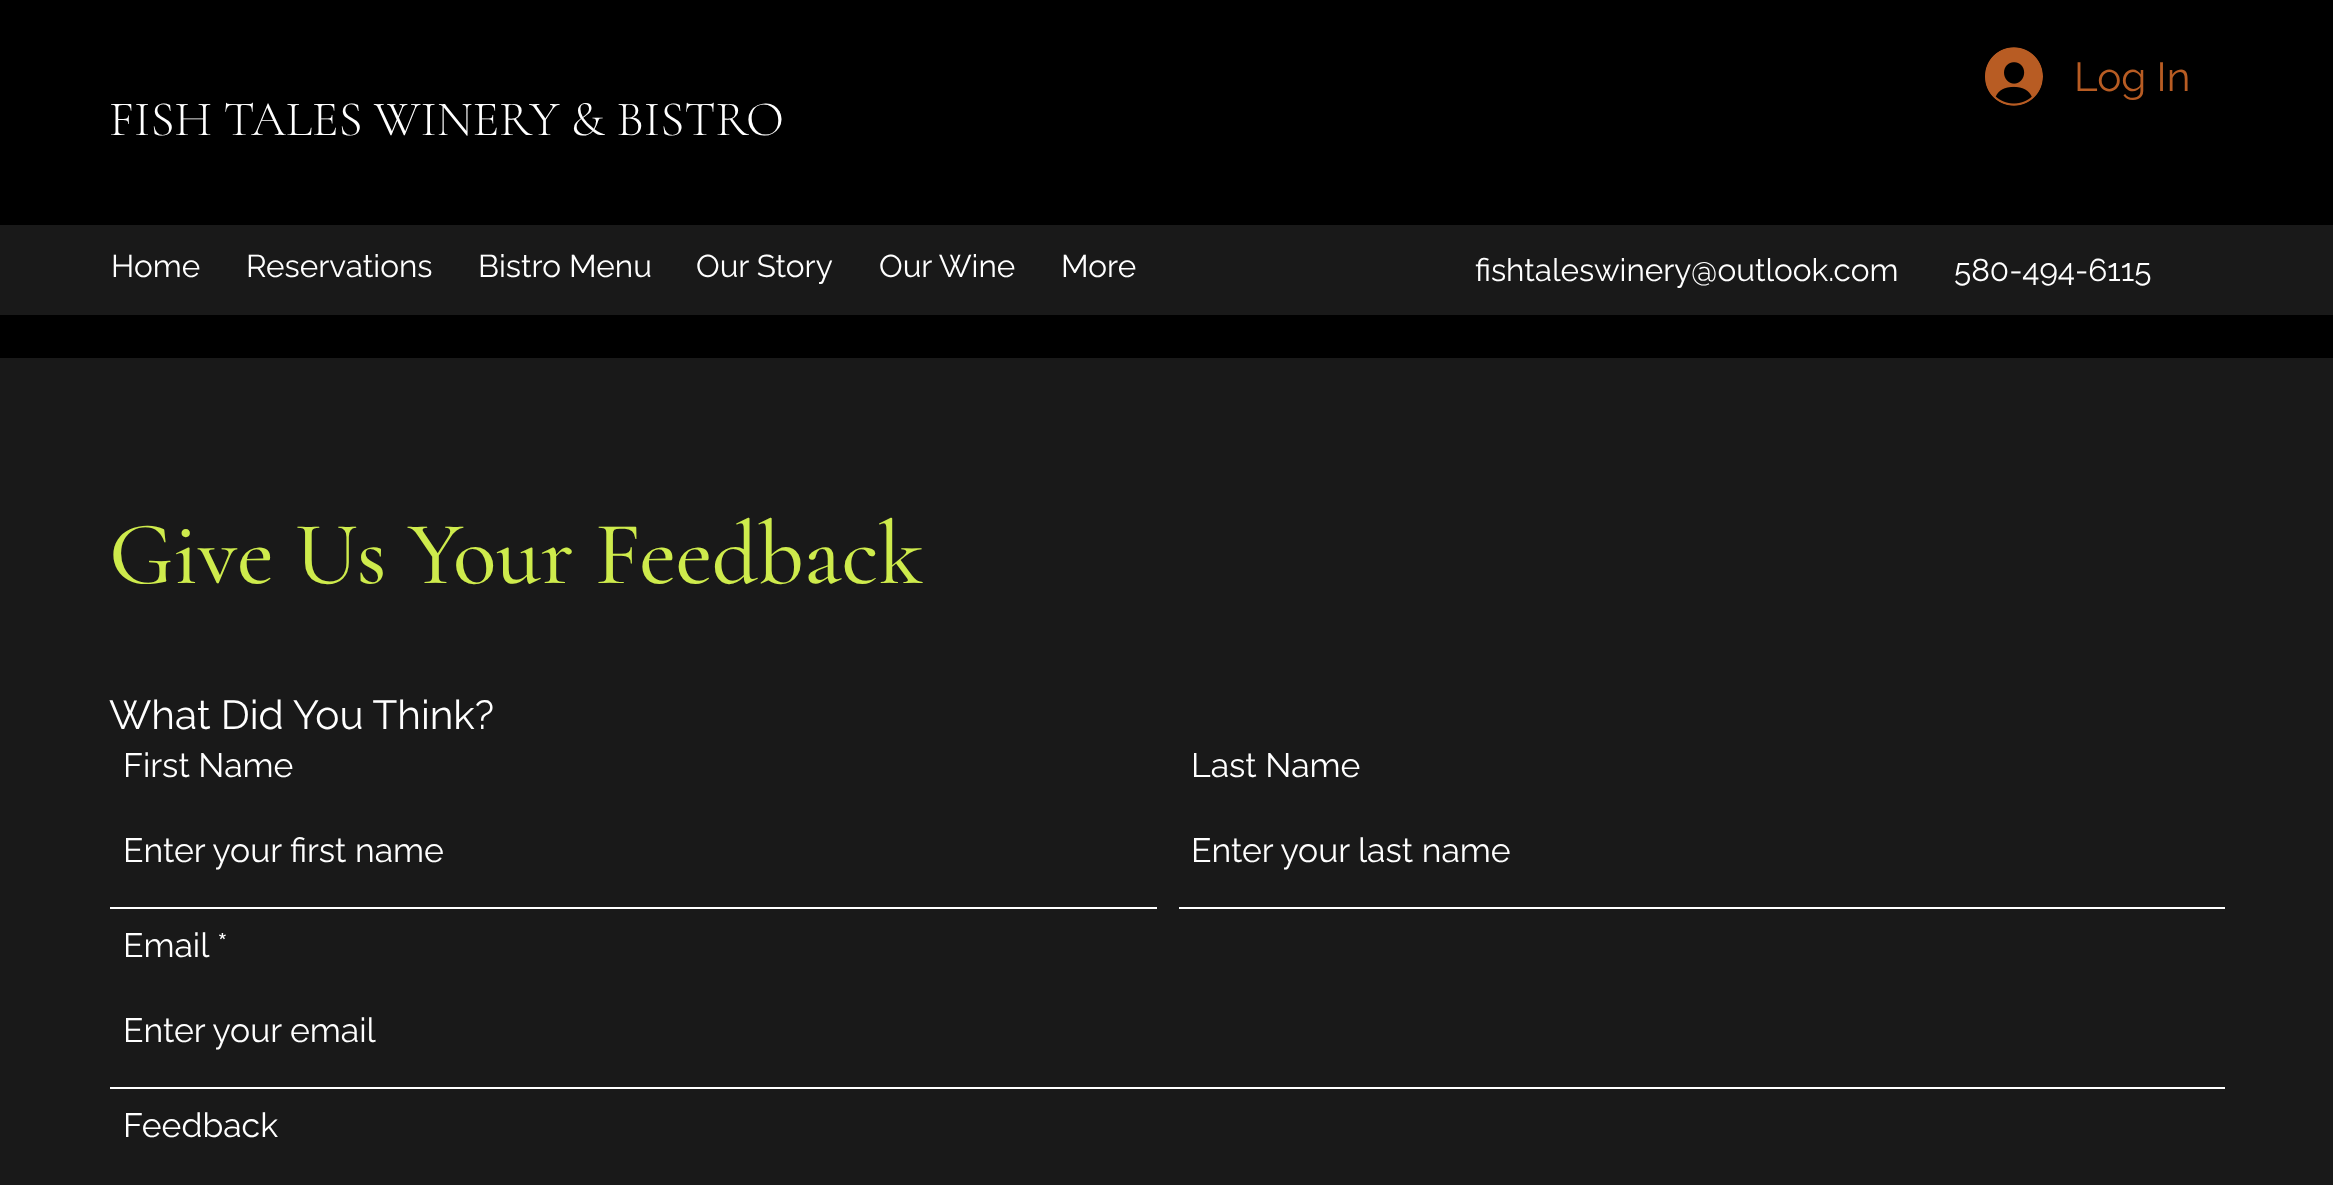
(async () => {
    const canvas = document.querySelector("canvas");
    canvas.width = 2333;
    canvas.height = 1185;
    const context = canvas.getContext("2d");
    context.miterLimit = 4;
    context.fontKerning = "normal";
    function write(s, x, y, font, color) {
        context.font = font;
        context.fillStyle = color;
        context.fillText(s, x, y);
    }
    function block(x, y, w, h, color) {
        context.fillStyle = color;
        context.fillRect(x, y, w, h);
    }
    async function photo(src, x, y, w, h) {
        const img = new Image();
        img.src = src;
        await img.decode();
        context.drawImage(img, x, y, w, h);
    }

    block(0, 0, 2333, 1185, "rgb(25, 25, 25)");
    block(0, 0, 2333, 358, "rgb(0, 0, 0)");
    await photo("media/1.png", 1985, 47, 58, 59);
    write("Log In", 2074, 91, "40.5px Raleway", "rgb(184, 92, 35)");
    write("FISH TALES WINERY & BISTRO", 109, 135, "300 49.5px Cormorant Garamond", "rgb(255, 255, 255)");
    block(0, 225, 2333, 90, "rgb(25, 25, 25)");
    write("Home", 111, 277, "31.5px Raleway", "rgb(255, 255, 255)");
    write("Reservations", 246, 277, "31.5px Raleway", "rgb(255, 255, 255)");
    write("Bistro Menu", 478, 277, "31.5px Raleway", "rgb(255, 255, 255)");
    write("Our Story", 696, 277, "31.5px Raleway", "rgb(255, 255, 255)");
    write("Our Wine", 879, 277, "31.5px Raleway", "rgb(255, 255, 255)");
    write("More", 1061, 277, "31.5px Raleway", "rgb(255, 255, 255)");
    write("fishtaleswinery@outlook.com", 1475, 281, "31.5px Raleway", "rgb(255, 255, 255)");
    write("580-494-6115", 1954, 281, "31.5px Raleway", "rgb(255, 255, 255)");
    write("Give Us Your Feedback", 109, 583, "500 90px Cormorant Garamond", "rgb(206, 235, 76)");
    write("What Did You Think?", 109, 729, "40.5px Raleway", "rgb(255, 255, 255)");
    write("First Name", 123, 777, "33.75px Raleway", "rgb(255, 255, 255)");
    block(110, 907, 1047, 2, "rgb(255, 255, 255)");
    write("Enter your first name", 123, 862, "33.75px Raleway", "rgb(255, 255, 255)");
    write("Last Name", 1191, 777, "33.75px Raleway", "rgb(255, 255, 255)");
    block(1179, 907, 1046, 2, "rgb(255, 255, 255)");
    write("Enter your last name", 1191, 862, "33.75px Raleway", "rgb(255, 255, 255)");
    write("Email", 123, 957, "33.75px Raleway", "rgb(255, 255, 255)");
    write("*", 217, 957, "33.75px Raleway", "rgb(255, 255, 255)");
    block(110, 1087, 2115, 2, "rgb(255, 255, 255)");
    write("Enter your email", 123, 1042, "33.75px Raleway", "rgb(255, 255, 255)");
    write("Feedback", 123, 1137, "33.75px Raleway", "rgb(255, 255, 255)");
})();
